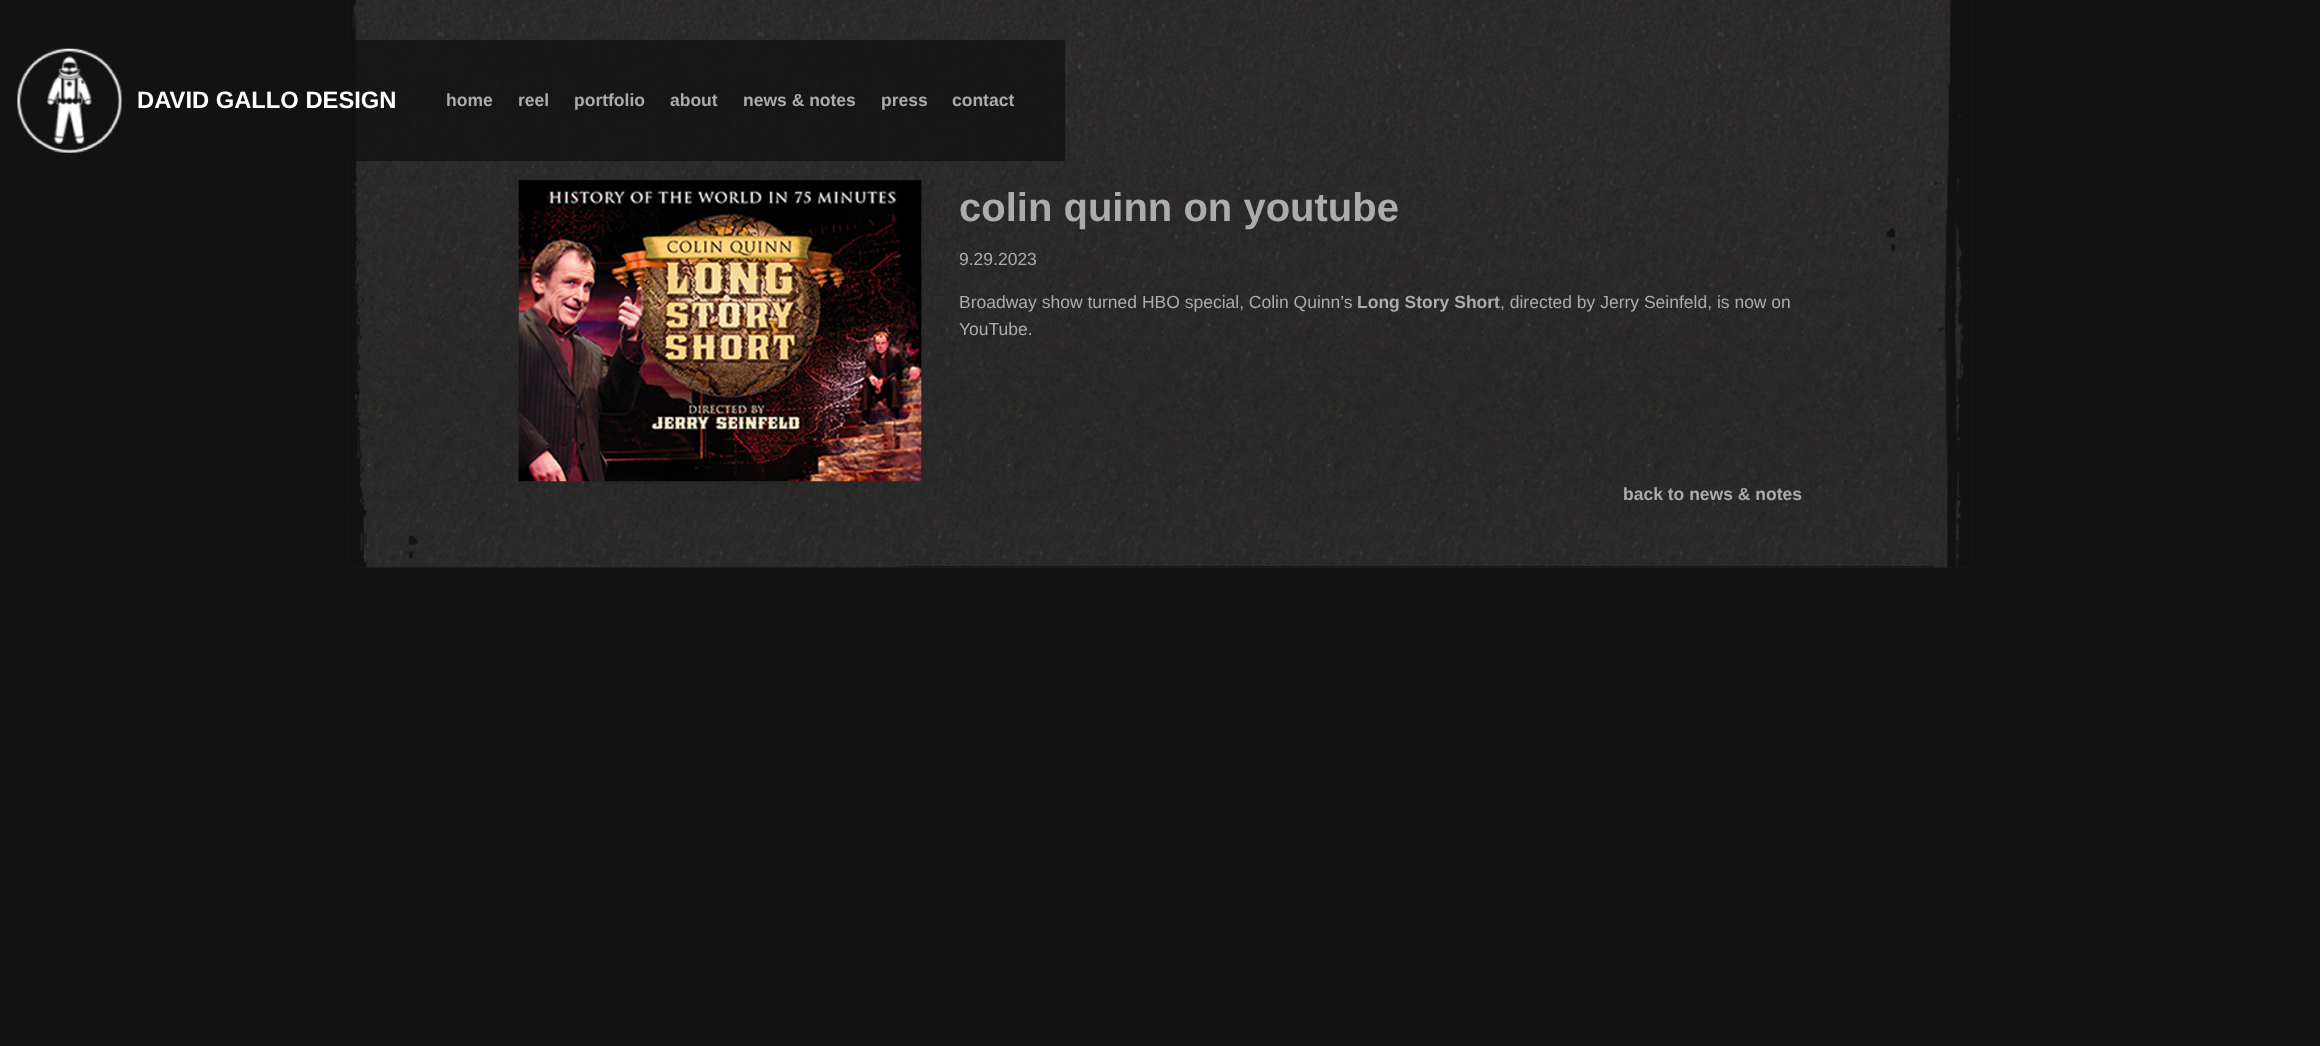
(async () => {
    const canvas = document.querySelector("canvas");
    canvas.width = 2320;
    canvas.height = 1046;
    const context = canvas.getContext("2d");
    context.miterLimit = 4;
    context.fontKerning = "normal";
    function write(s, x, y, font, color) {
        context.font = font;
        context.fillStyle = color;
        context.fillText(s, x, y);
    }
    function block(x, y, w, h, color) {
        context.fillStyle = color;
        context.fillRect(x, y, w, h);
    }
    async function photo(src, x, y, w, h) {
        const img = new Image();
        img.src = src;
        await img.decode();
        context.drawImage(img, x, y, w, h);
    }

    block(0, 0, 2320, 1046, "rgb(19, 18, 18)");
    await photo("media/2.png", 348, 0, 1624, 568);
    block(348, 40, 48, 121, "rgba(19, 18, 18, 0.8)");
    await photo("media/1.png", 17, 48, 105, 105);
    write("DAVID GALLO DESIGN", 137, 108, "bold 23.75px Liberation Sans", "rgb(255, 255, 255)");
    block(396, 40, 669, 121, "rgba(19, 18, 18, 0.8)");
    write("home", 446, 106, "bold 17.5px Liberation Sans", "rgb(172, 172, 172)");
    write("reel", 518, 106, "bold 17.5px Liberation Sans", "rgb(172, 172, 172)");
    write("portfolio", 574, 106, "bold 17.5px Liberation Sans", "rgb(172, 172, 172)");
    write("about", 670, 106, "bold 17.5px Liberation Sans", "rgb(172, 172, 172)");
    write("news & notes", 743, 106, "bold 17.5px Liberation Sans", "rgb(172, 172, 172)");
    write("press", 881, 106, "bold 17.5px Liberation Sans", "rgb(172, 172, 172)");
    write("contact", 952, 106, "bold 17.5px Liberation Sans", "rgb(172, 172, 172)");
    await photo("media/3.png", 518, 180, 404, 302);
    write("colin quinn on youtube", 959, 221, "bold 40px Liberation Sans", "rgb(172, 172, 172)");
    write("9.29.2023", 959, 265, "17.5px Liberation Sans", "rgb(172, 172, 172)");
    write("Broadway show turned HBO special, Colin Quinn’s", 959, 308, "17.5px Liberation Sans", "rgb(172, 172, 172)");
    write("Long Story Short", 1357, 308, "bold 17.5px Liberation Sans", "rgb(172, 172, 172)");
    write(", directed by Jerry Seinfeld, is now on", 1500, 308, "17.5px Liberation Sans", "rgb(172, 172, 172)");
    write("YouTube.", 959, 335, "17.5px Liberation Sans", "rgb(172, 172, 172)");
    write("back to news & notes", 1623, 500, "bold 17.5px Liberation Sans", "rgb(172, 172, 172)");
    block(903, 566, 1031, 1, "rgba(19, 18, 18, 0.8)");
})();
